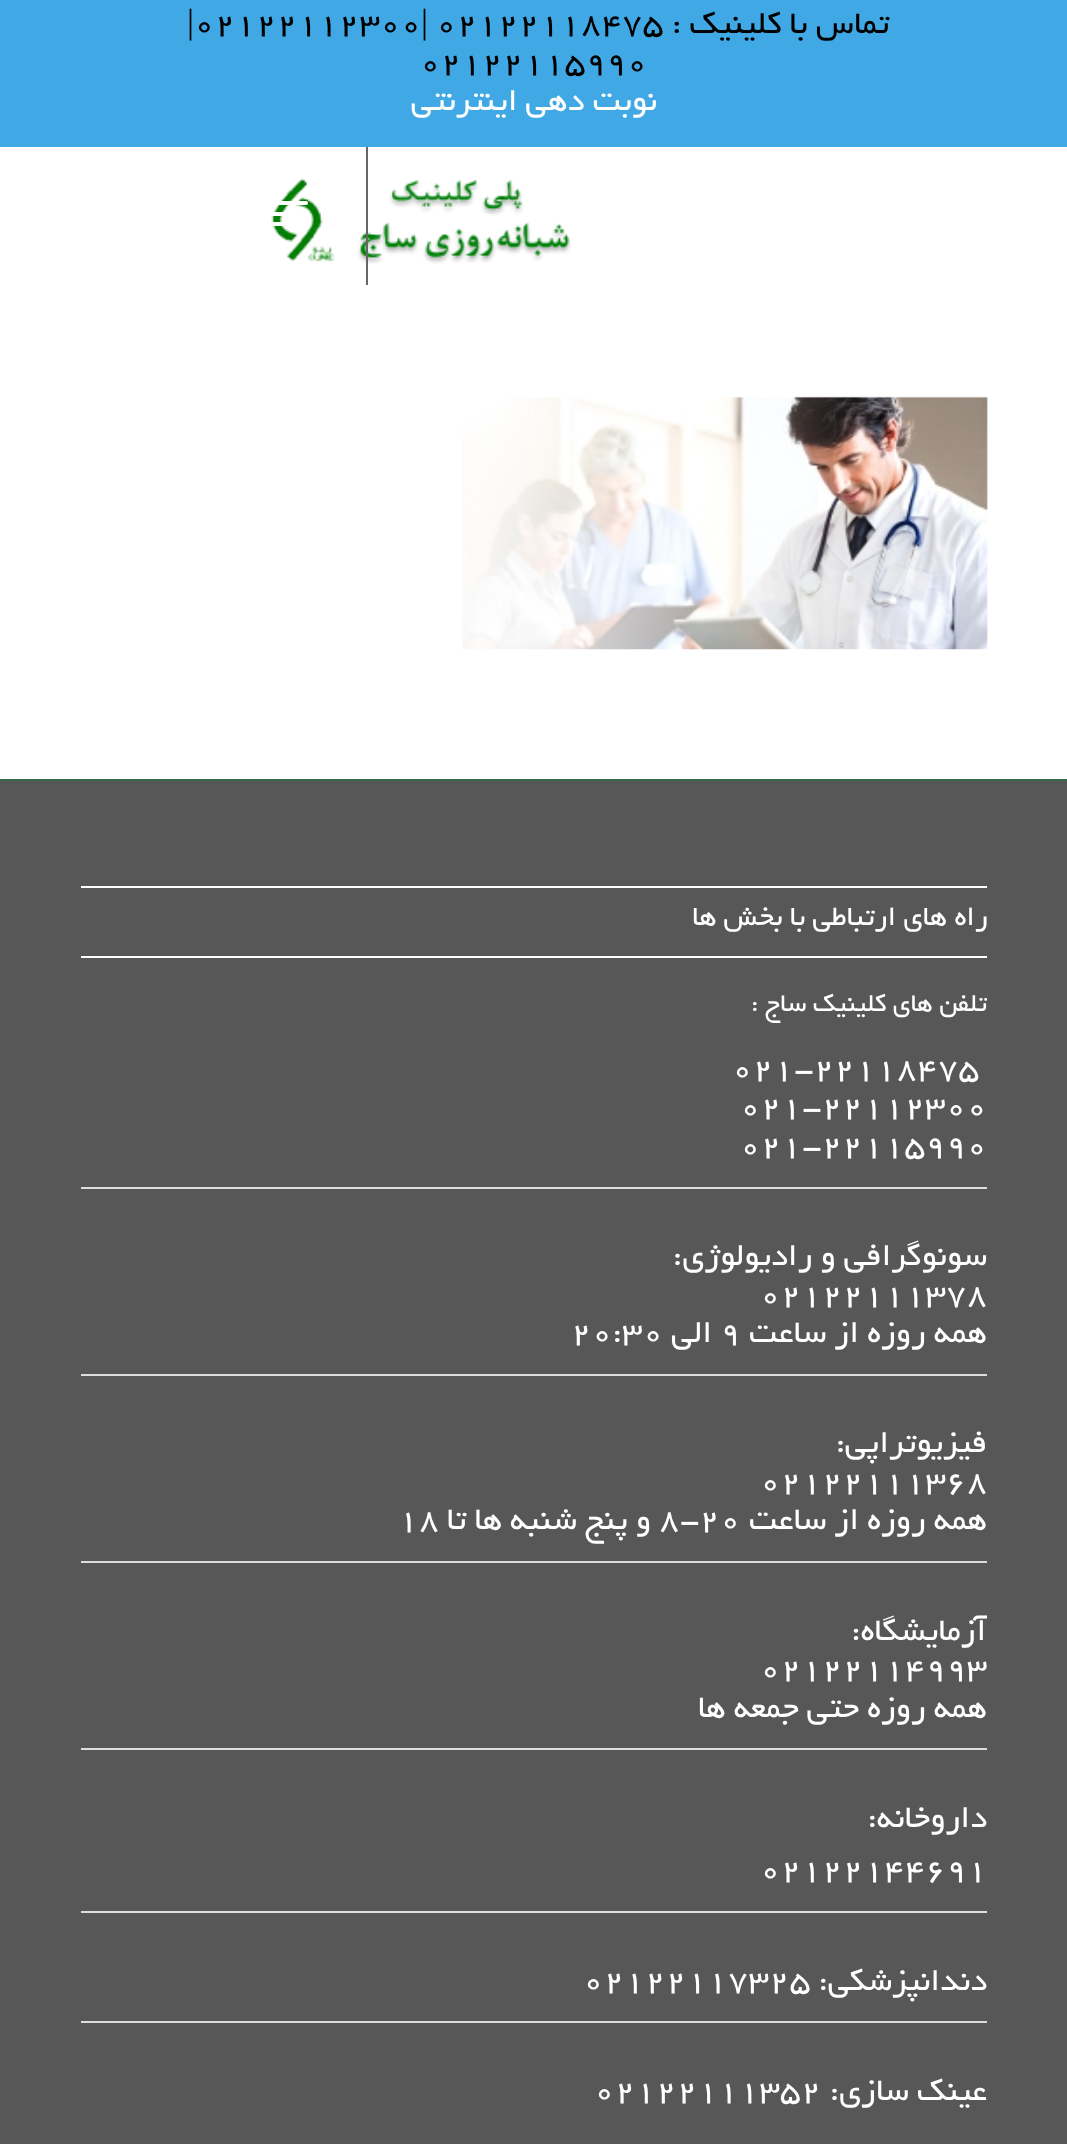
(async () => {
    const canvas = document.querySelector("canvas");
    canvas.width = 1067;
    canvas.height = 2144;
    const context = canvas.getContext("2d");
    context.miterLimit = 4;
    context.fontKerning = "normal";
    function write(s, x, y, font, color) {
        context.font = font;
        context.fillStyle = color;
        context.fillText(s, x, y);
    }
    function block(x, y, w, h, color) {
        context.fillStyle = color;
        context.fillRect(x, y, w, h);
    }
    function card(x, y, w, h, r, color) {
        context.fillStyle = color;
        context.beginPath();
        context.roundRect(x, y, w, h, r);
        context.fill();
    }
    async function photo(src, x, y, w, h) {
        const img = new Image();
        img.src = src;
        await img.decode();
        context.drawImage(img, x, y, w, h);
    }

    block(0, 0, 1067, 2144, "rgb(255, 255, 255)");
    await photo("media/1.png", 271, 178, 300, 86);
    block(366, 145, 2, 140, "rgb(102, 102, 102)");
    block(0, 0, 1067, 147, "rgb(64, 168, 228)");
    context.direction = "rtl";
    write("تماس با کلینیک :", 889, 33, "35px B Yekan", "rgb(0, 0, 0)");
    context.direction = "ltr";
    write("۰۲۱۲۲۱۱۸۴۷۵", 436, 33, "35px B Yekan", "rgb(0, 0, 0)");
    write("|", 421, 33, "35px Liberation Serif", "rgb(0, 0, 0)");
    write("۰۲۱۲۲۱۱۲۳۰۰", 194, 33, "35px B Yekan", "rgb(0, 0, 0)");
    write("|", 187, 33, "35px Liberation Serif", "rgb(0, 0, 0)");
    write("۰۲۱۲۲۱۱۵۹۹۰", 420, 72, "35px B Yekan", "rgb(0, 0, 0)");
    context.direction = "rtl";
    write("نوبت دهی اینترنتی", 657, 110, "35px B Yekan", "rgb(255, 255, 255)");
    card(271, 212, 37, 4, 2, "rgb(255, 255, 255)");
    card(271, 201, 37, 4, 2, "rgb(255, 255, 255)");
    card(271, 222, 37, 4, 2, "rgb(255, 255, 255)");
    await photo("media/2.png", 462, 396, 526, 254);
    block(0, 781, 1067, 1363, "rgb(87, 87, 87)");
    block(0, 779, 1067, 2, "rgb(54, 104, 80)");
    block(81, 886, 906, 2, "rgb(255, 255, 255)");
    block(81, 956, 906, 2, "rgb(255, 255, 255)");
    write("راه های ارتباطی با بخش ها", 988, 925, "30.75px B Yekan", "rgb(255, 255, 255)");
    context.save();
    context.beginPath();
    context.rect(81, 859, 906, 1269);
    context.clip();
    write("تلفن های کلینیک ساج :", 987, 1011, "28px B Yekan", "rgb(255, 255, 255)");
    context.restore();
    context.direction = "ltr";
    write("۰۲۱-۲۲۱۱۸۴۷۵", 732, 1078, "35px B Yekan", "rgb(255, 255, 255)");
    write("۰۲۱-۲۲۱۱۲۳۰۰", 740, 1116, "35px B Yekan", "rgb(255, 255, 255)");
    write("۰۲۱-۲۲۱۱۵۹۹۰", 740, 1155, "35px B Yekan", "rgb(255, 255, 255)");
    block(81, 1187, 906, 2, "rgb(221, 221, 221)");
    context.direction = "rtl";
    write("سونوگرافی و رادیولوژی:", 987, 1265, "35px B Yekan", "rgb(255, 255, 255)");
    context.direction = "ltr";
    write("۰۲۱۲۲۱۱۱۳۷۸", 760, 1304, "35px B Yekan", "rgb(255, 255, 255)");
    context.direction = "rtl";
    write("همه روزه از ساعت", 987, 1342, "35px B Yekan", "rgb(255, 255, 255)");
    context.direction = "ltr";
    write("۹", 720, 1342, "35px B Yekan", "rgb(255, 255, 255)");
    context.direction = "rtl";
    write("الی", 712, 1342, "35px B Yekan", "rgb(255, 255, 255)");
    context.direction = "ltr";
    write("۲۰:۳۰", 571, 1342, "35px B Yekan", "rgb(255, 255, 255)");
    block(81, 1374, 906, 2, "rgb(221, 221, 221)");
    context.direction = "rtl";
    write("فیزیوتراپی:", 987, 1452, "35px B Yekan", "rgb(255, 255, 255)");
    context.direction = "ltr";
    write("۰۲۱۲۲۱۱۱۳۶۸", 760, 1491, "35px B Yekan", "rgb(255, 255, 255)");
    context.direction = "rtl";
    write("همه روزه از ساعت", 987, 1529, "35px B Yekan", "rgb(255, 255, 255)");
    context.direction = "ltr";
    write("۸-۲۰", 659, 1529, "35px B Yekan", "rgb(255, 255, 255)");
    context.direction = "rtl";
    write("و پنج شنبه ها تا", 651, 1529, "35px B Yekan", "rgb(255, 255, 255)");
    context.direction = "ltr";
    write("۱۸", 398, 1529, "35px B Yekan", "rgb(255, 255, 255)");
    block(81, 1561, 906, 2, "rgb(221, 221, 221)");
    context.save();
    context.beginPath();
    context.rect(81, 859, 906, 1269);
    context.clip();
    context.direction = "rtl";
    write("آزمایشگاه:", 987, 1640, "35px B Yekan", "rgb(255, 255, 255)");
    context.restore();
    write("۰۲۱۲۲۱۱۴۹۹۳", 760, 1678, "35px B Yekan", "rgb(255, 255, 255)");
    context.direction = "rtl";
    write("همه روزه حتی جمعه ها", 987, 1717, "35px B Yekan", "rgb(255, 255, 255)");
    block(81, 1748, 906, 2, "rgb(221, 221, 221)");
    write("داروخانه:", 987, 1827, "35px B Yekan", "rgb(255, 255, 255)");
    context.direction = "ltr";
    write("۰۲۱۲۲۱۴۴۶۹۱", 760, 1879, "35px B Yekan", "rgb(255, 255, 255)");
    block(81, 1911, 906, 2, "rgb(221, 221, 221)");
    context.direction = "rtl";
    write("دندانپزشکی:", 987, 1990, "35px B Yekan", "rgb(255, 255, 255)");
    context.direction = "ltr";
    write("۰۲۱۲۲۱۱۷۳۲۵", 583, 1990, "35px B Yekan", "rgb(255, 255, 255)");
    block(81, 2021, 906, 2, "rgb(221, 221, 221)");
    context.direction = "rtl";
    write("عینک سازی:", 987, 2100, "35px B Yekan", "rgb(255, 255, 255)");
    context.direction = "ltr";
    write("۰۲۱۲۲۱۱۱۳۵۲", 594, 2100, "35px B Yekan", "rgb(255, 255, 255)");
})();
